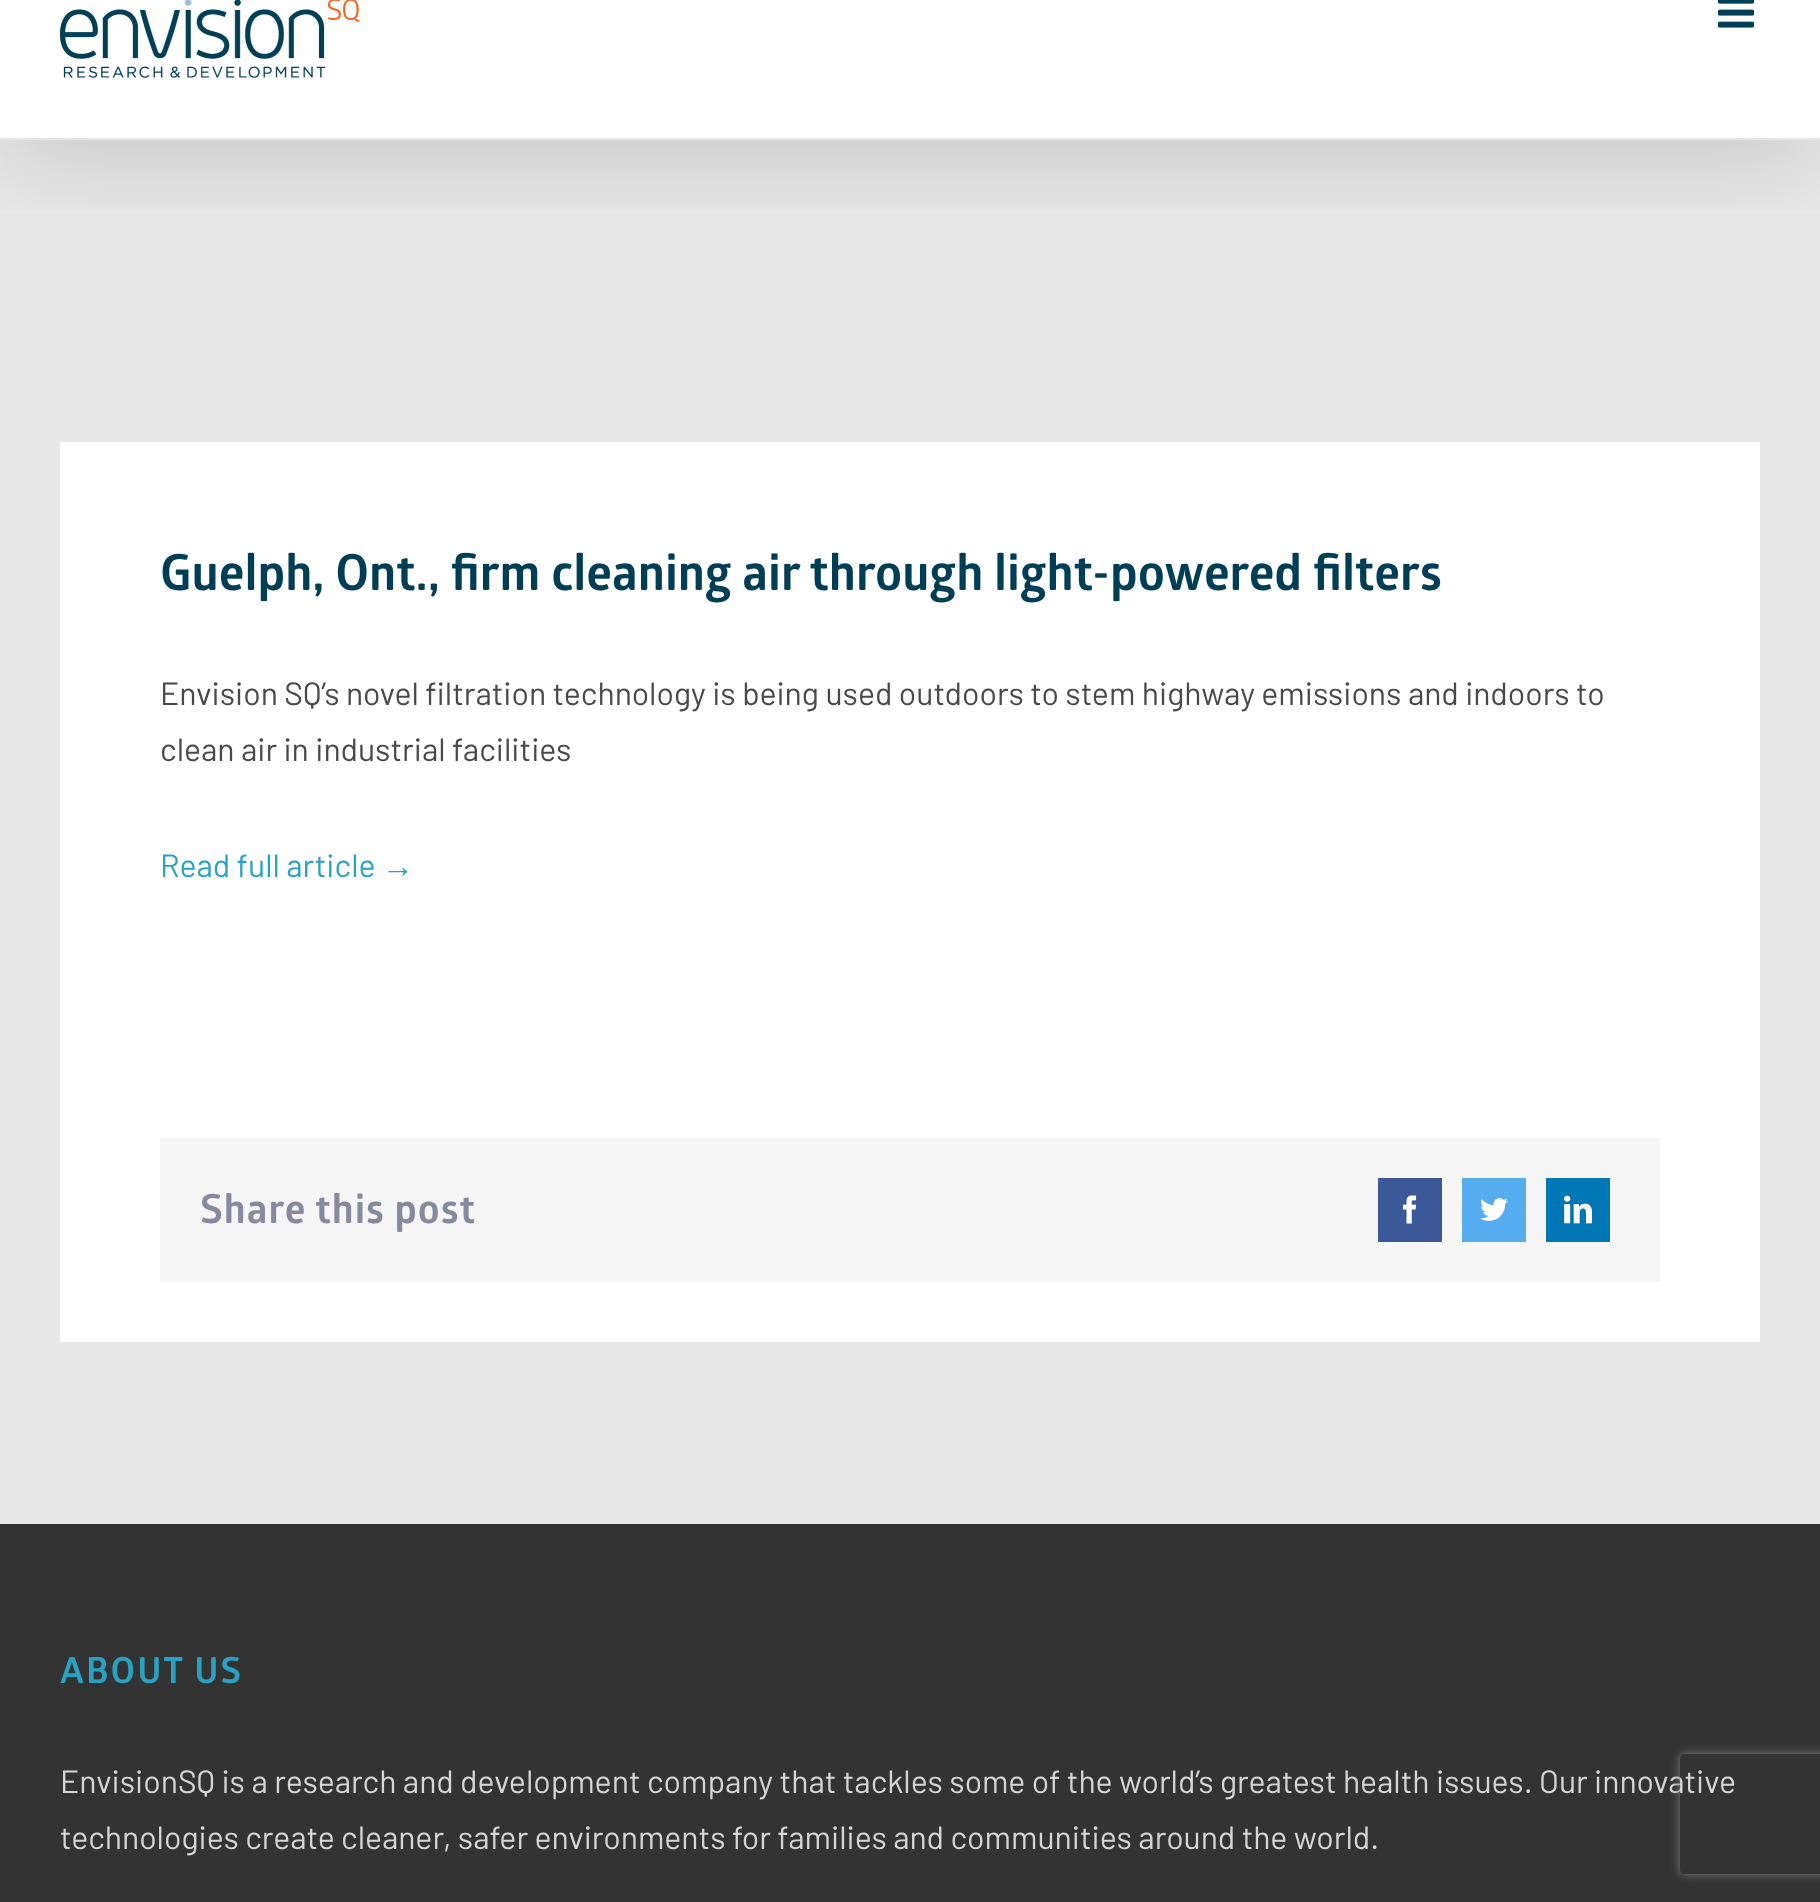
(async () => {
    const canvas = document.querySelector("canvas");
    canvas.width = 1820;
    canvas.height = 1902;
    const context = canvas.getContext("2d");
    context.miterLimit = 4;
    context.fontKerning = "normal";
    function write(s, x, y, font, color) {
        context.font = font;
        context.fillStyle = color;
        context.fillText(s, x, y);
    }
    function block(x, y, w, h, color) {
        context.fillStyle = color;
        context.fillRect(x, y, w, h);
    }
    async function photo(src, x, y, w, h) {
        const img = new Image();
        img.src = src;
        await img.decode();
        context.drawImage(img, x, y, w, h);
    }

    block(0, 0, 1820, 1902, "rgb(255, 255, 255)");
    block(0, 140, 1820, 1384, "rgb(232, 232, 232)");
    context.save();
    context.beginPath();
    context.rect(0, 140, 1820, 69);
    context.clip();
    context.fillStyle = "rgba(0, 0, 0, 0.14)";
    context.filter = "blur(50px)";
    context.beginPath();
    context.rect(4, -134, 1812, 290);
    context.fill();
    context.filter = "none";
    context.restore();
    block(0, 138, 1820, 2, "rgb(229, 229, 229)");
    await photo("media/1.png", 60, 0, 300, 78);
    await photo("media/2.png", 1718, 0, 36, 28);
    block(60, 442, 1700, 900, "rgb(255, 255, 255)");
    write("Guelph, Ont., firm cleaning air through light-powered filters", 160, 590, "bold 49.75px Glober", "rgb(0, 62, 86)");
    write("Envision SQ’s novel filtration technology is being used outdoors to stem highway emissions and indoors to", 160, 705, "32px Barlow", "rgb(73, 73, 73)");
    write("clean air in industrial facilities", 160, 761, "32px Barlow", "rgb(73, 73, 73)");
    write("Read full article", 160, 877, "32px Barlow", "rgb(41, 161, 194)");
    write("→", 382, 877, "32px Liberation Sans", "rgb(41, 161, 194)");
    block(160, 1138, 1500, 144, "rgb(246, 246, 246)");
    context.letterSpacing = "1px";
    write("Share this post", 200, 1223, "bold 40px Glober", "rgb(133, 138, 159)");
    block(1378, 1178, 64, 64, "rgb(59, 89, 152)");
    await photo("media/3.png", 1403, 1195, 14, 29);
    block(1462, 1178, 64, 64, "rgb(85, 172, 238)");
    await photo("media/4.png", 1480, 1198, 28, 23);
    block(1546, 1178, 64, 64, "rgb(0, 119, 181)");
    await photo("media/5.png", 1564, 1195, 28, 29);
    block(0, 1524, 1820, 378, "rgb(51, 51, 51)");
    context.letterSpacing = "2px";
    write("ABOUT US", 60, 1683, "bold 36px Glober", "rgb(41, 161, 194)");
    context.letterSpacing = "0px";
    write("EnvisionSQ is a research and development company that tackles some of the world’s greatest health issues. Our innovative", 60, 1793, "32px Barlow", "rgb(214, 214, 214)");
    write("technologies create cleaner, safer environments for families and communities around the world.", 60, 1849, "32px Barlow", "rgb(214, 214, 214)");
    context.save();
    context.beginPath();
    context.moveTo(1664, 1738);
    context.lineTo(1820, 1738);
    context.lineTo(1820, 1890);
    context.lineTo(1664, 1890);
    context.closePath();
    context.moveTo(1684, 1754);
    context.lineTo(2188, 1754);
    context.bezierCurveTo(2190, 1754, 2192, 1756, 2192, 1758);
    context.lineTo(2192, 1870);
    context.bezierCurveTo(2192, 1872, 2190, 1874, 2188, 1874);
    context.lineTo(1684, 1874);
    context.bezierCurveTo(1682, 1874, 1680, 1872, 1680, 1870);
    context.lineTo(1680, 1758);
    context.bezierCurveTo(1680, 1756, 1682, 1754, 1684, 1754);
    context.closePath();
    context.clip("evenodd");
    context.fillStyle = "rgb(128, 128, 128)";
    context.filter = "blur(5px)";
    context.beginPath();
    context.roundRect(1680, 1754, 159, 120, 4);
    context.fill();
    context.filter = "none";
    context.restore();
})();
